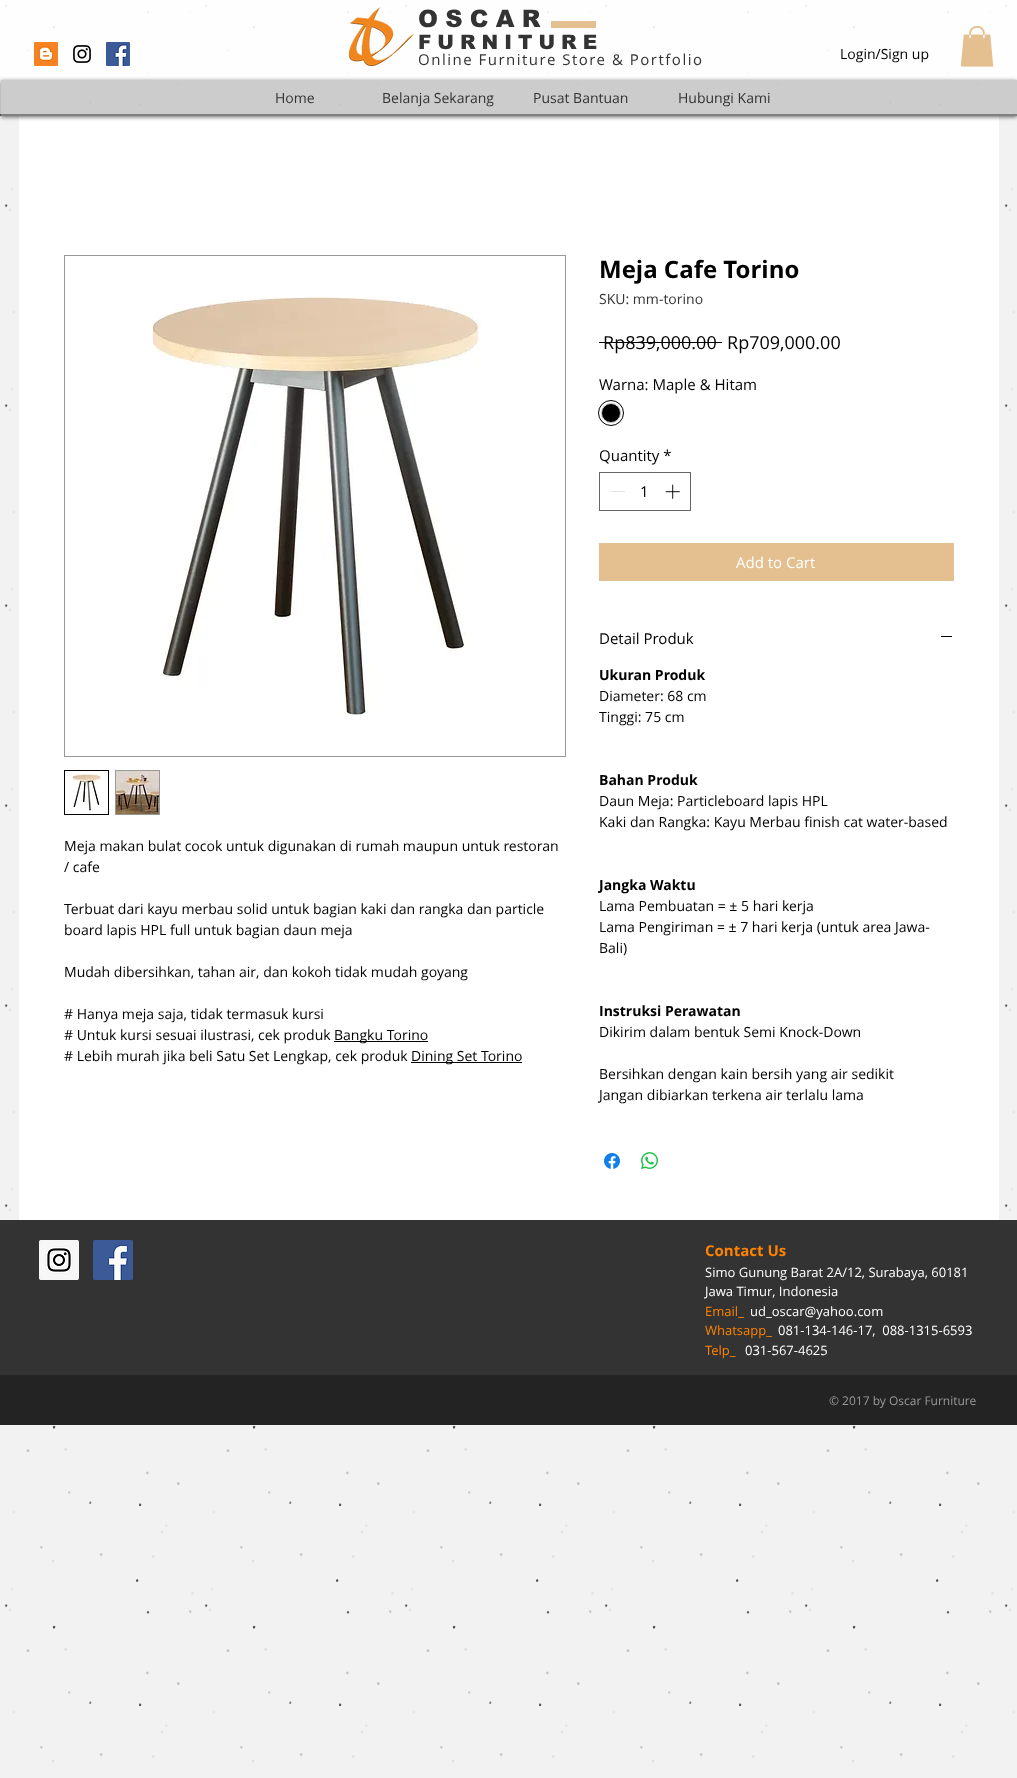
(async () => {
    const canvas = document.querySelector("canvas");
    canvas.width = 1017;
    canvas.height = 1778;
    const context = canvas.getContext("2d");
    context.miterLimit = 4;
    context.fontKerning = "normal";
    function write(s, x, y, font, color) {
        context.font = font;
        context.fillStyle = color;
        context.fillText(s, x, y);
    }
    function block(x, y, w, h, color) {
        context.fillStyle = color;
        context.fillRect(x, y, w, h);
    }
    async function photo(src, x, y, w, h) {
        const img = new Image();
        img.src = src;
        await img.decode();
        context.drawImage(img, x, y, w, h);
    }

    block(0, 0, 1017, 1778, "rgb(242, 242, 242)");
    await photo("media/1.png", 5, 4, 1010, 1759);
    block(0, 0, 1017, 114, "rgba(255, 255, 255, 0.9)");
    block(0, 114, 1017, 2, "rgb(102, 102, 102)");
    await photo("media/2.png", 349, 7, 65, 59);
    context.letterSpacing = "7.25px";
    write("OSCAR", 418, 27, "900 24px arial", "rgb(51, 51, 51)");
    context.letterSpacing = "6px";
    write("FURNITURE", 418, 49, "900 20px arial", "rgb(51, 51, 51)");
    block(551, 21, 45, 7, "rgb(228, 191, 143)");
    await photo("media/3.png", 34, 42, 24, 24);
    await photo("media/4.png", 73, 45, 18, 18);
    await photo("media/5.png", 106, 42, 24, 24);
    context.letterSpacing = "1.5px";
    write("Online Furniture Store & Portfolio", 418, 65, "15px Open Sans", "rgb(51, 51, 51)");
    context.letterSpacing = "0px";
    write("Login/Sign up", 840, 59, "14px Open Sans", "rgb(0, 0, 0)");
    await photo("media/6.png", 960, 26, 34, 41);
    block(19, 116, 980, 1104, "rgb(255, 255, 255)");
    context.save();
    context.beginPath();
    context.moveTo(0, 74);
    context.lineTo(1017, 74);
    context.lineTo(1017, 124);
    context.lineTo(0, 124);
    context.closePath();
    context.moveTo(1, 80);
    context.lineTo(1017, 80);
    context.lineTo(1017, 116);
    context.lineTo(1, 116);
    context.closePath();
    context.clip("evenodd");
    context.fillStyle = "rgba(0, 0, 0, 0.6)";
    context.filter = "blur(2px)";
    context.beginPath();
    context.rect(1, 81, 1016, 36);
    context.fill();
    context.filter = "none";
    context.restore();
    block(1, 80, 1016, 36, "rgba(153, 153, 153, 0.5)");
    write("Home", 275, 103, "14px Open Sans", "rgb(51, 51, 51)");
    write("Belanja Sekarang", 382, 103, "14px Open Sans", "rgb(51, 51, 51)");
    write("Pusat Bantuan", 533, 103, "14px Open Sans", "rgb(51, 51, 51)");
    write("Hubungi Kami", 678, 103, "14px Open Sans", "rgb(51, 51, 51)");
    context.strokeStyle = "rgb(153, 153, 153)";
    context.strokeRect(64.5, 255.5, 501, 501);
    await photo("media/7.png", 152, 297, 329, 419);
    context.strokeStyle = "rgb(0, 0, 0)";
    context.strokeRect(64.5, 770.5, 44, 44);
    await photo("media/8.png", 72, 772, 30, 39);
    context.strokeStyle = "rgb(153, 153, 153)";
    context.strokeRect(115.5, 770.5, 44, 44);
    await photo("media/9.png", 116, 771, 43, 43);
    write("Meja makan bulat cocok untuk digunakan di rumah maupun untuk restoran", 64, 851, "14px Open Sans", "rgb(0, 0, 0)");
    write("/ cafe", 64, 872, "14px Open Sans", "rgb(0, 0, 0)");
    write("Terbuat dari kayu merbau solid untuk bagian kaki dan rangka dan particle", 64, 914, "14px Open Sans", "rgb(0, 0, 0)");
    write("board lapis HPL full untuk bagian daun meja", 64, 935, "14px Open Sans", "rgb(0, 0, 0)");
    write("Mudah dibersihkan, tahan air, dan kokoh tidak mudah goyang", 64, 977, "14px Open Sans", "rgb(0, 0, 0)");
    write("# Hanya meja saja, tidak termasuk kursi", 64, 1019, "14px Open Sans", "rgb(0, 0, 0)");
    write("# Untuk kursi sesuai ilustrasi, cek produk", 64, 1040, "14px Open Sans", "rgb(0, 0, 0)");
    block(334, 1041, 94, 1, "rgb(0, 0, 0)");
    write("Bangku Torino", 334, 1040, "14px Open Sans", "rgb(0, 0, 0)");
    write("# Lebih murah jika beli Satu Set Lengkap, cek produk", 64, 1061, "14px Open Sans", "rgb(0, 0, 0)");
    block(411, 1062, 111, 1, "rgb(0, 0, 0)");
    write("Dining Set Torino", 411, 1061, "14px Open Sans", "rgb(0, 0, 0)");
    write("Meja Cafe Torino", 599, 278, "bold 24px Open Sans", "rgb(0, 0, 0)");
    write("SKU: mm-torino", 599, 304, "14px Open Sans", "rgb(51, 51, 51)");
    write("Rp839,000.00", 603, 349, "18px Open Sans", "rgb(0, 0, 0)");
    block(599, 342, 123, 1, "rgb(0, 0, 0)");
    write("Rp709,000.00", 727, 349, "18px Open Sans", "rgb(0, 0, 0)");
    write("Warna: Maple & Hitam", 599, 390, "15px Open Sans", "rgb(0, 0, 0)");
    context.beginPath();
    context.arc(611, 413, 12.5, 0, Math.PI * 2);
    context.strokeStyle = "rgb(0, 0, 0)";
    context.stroke();
    context.beginPath();
    context.arc(611, 413, 9.5, 0, Math.PI * 2);
    context.fill();
    context.strokeStyle = "rgb(201, 201, 201)";
    context.stroke();
    write("Quantity *", 599, 461, "15px Open Sans", "rgb(0, 0, 0)");
    context.strokeStyle = "rgb(102, 102, 102)";
    context.strokeRect(599.5, 472.5, 91, 38);
    block(611, 491, 14, 1, "rgb(227, 227, 227)");
    write("1", 640, 497, "15px Open Sans", "rgb(0, 0, 0)");
    await photo("media/10.png", 665, 484, 15, 15);
    block(599, 543, 355, 38, "rgb(228, 191, 143)");
    write("Add to Cart", 736, 568, "15px Open Sans", "rgb(255, 255, 255)");
    write("Detail Produk", 599, 644, "15px Open Sans", "rgb(0, 0, 0)");
    block(941, 636, 11, 1, "rgb(0, 0, 0)");
    write("Ukuran Produk", 599, 680, "bold 14px Open Sans", "rgb(0, 0, 0)");
    write("Diameter: 68 cm", 599, 701, "14px Open Sans", "rgb(0, 0, 0)");
    write("Tinggi: 75 cm", 599, 722, "14px Open Sans", "rgb(0, 0, 0)");
    write("Bahan Produk", 599, 785, "bold 14px Open Sans", "rgb(0, 0, 0)");
    write("Daun Meja: Particleboard lapis HPL", 599, 806, "14px Open Sans", "rgb(0, 0, 0)");
    write("Kaki dan Rangka: Kayu Merbau finish cat water-based", 599, 827, "14px Open Sans", "rgb(0, 0, 0)");
    write("Jangka Waktu", 599, 890, "bold 14px Open Sans", "rgb(0, 0, 0)");
    write("Lama Pembuatan = ± 5 hari kerja", 599, 911, "14px Open Sans", "rgb(0, 0, 0)");
    write("Lama Pengiriman = ± 7 hari kerja (untuk area Jawa-", 599, 932, "14px Open Sans", "rgb(0, 0, 0)");
    write("Bali)", 599, 953, "14px Open Sans", "rgb(0, 0, 0)");
    write("Instruksi Perawatan", 599, 1016, "bold 14px Open Sans", "rgb(0, 0, 0)");
    write("Dikirim dalam bentuk Semi Knock-Down", 599, 1037, "14px Open Sans", "rgb(0, 0, 0)");
    write("Bersihkan dengan kain bersih yang air sedikit", 599, 1079, "14px Open Sans", "rgb(0, 0, 0)");
    write("Jangan dibiarkan terkena air terlalu lama", 599, 1100, "14px Open Sans", "rgb(0, 0, 0)");
    await photo("media/11.png", 604, 1153, 16, 16);
    await photo("media/12.png", 641, 1152, 17, 17);
    block(0, 1220, 1017, 155, "rgb(51, 51, 51)");
    await photo("media/13.png", 39, 1240, 40, 40);
    await photo("media/14.png", 93, 1240, 40, 40);
    write("Contact Us", 705, 1256, "bold 15px Open Sans", "rgb(255, 131, 0)");
    write("Simo Gunung Barat 2A/12, Surabaya, 60181", 705, 1277, "13px Open Sans", "rgb(255, 255, 255)");
    write("Jawa Timur, Indonesia", 705, 1296, "13px Open Sans", "rgb(255, 255, 255)");
    write("Email_", 705, 1316, "13px Open Sans", "rgb(255, 131, 0)");
    write("ud_oscar@yahoo.com", 750, 1316, "13px Open Sans", "rgb(255, 255, 255)");
    write("Whatsapp_", 705, 1335, "13px Open Sans", "rgb(255, 131, 0)");
    write("081-134-146-17,  088-1315-6593", 778, 1335, "13px Open Sans", "rgb(255, 255, 255)");
    write("Telp_", 705, 1355, "13px Open Sans", "rgb(255, 131, 0)");
    write("031-567-4625", 745, 1355, "13px Open Sans", "rgb(255, 255, 255)");
    block(0, 1375, 1017, 50, "rgb(36, 35, 35)");
    write("© 2017 by Oscar Furniture", 829, 1405, "12px Open Sans", "rgb(153, 153, 153)");
})();
